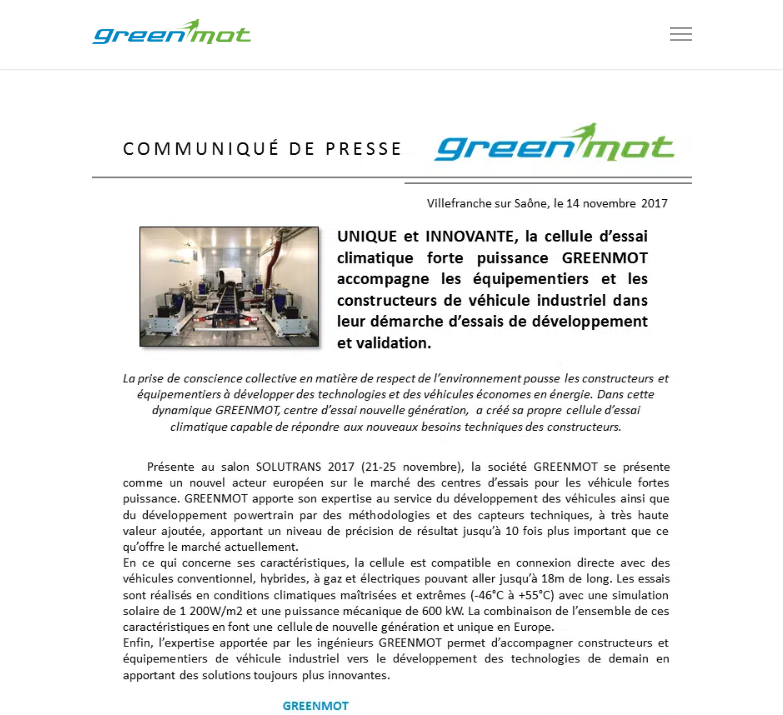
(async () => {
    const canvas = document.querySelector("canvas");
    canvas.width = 783;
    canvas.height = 715;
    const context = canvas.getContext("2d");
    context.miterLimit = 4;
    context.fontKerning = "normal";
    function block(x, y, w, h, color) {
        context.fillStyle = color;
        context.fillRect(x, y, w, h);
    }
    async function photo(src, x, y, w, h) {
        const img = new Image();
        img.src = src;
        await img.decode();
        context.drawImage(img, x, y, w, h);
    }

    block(0, 0, 783, 715, "rgb(255, 255, 255)");
    context.save();
    context.beginPath();
    context.rect(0, 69, 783, 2);
    context.clip();
    context.fillStyle = "rgba(0, 0, 0, 0.22)";
    context.filter = "blur(1.5px)";
    context.beginPath();
    context.rect(0, 0, 783, 69);
    context.fill();
    context.filter = "none";
    context.restore();
    await photo("media/1.png", 91, 19, 160, 25);
    block(670, 27, 22, 2, "rgb(153, 153, 153)");
    block(670, 39, 22, 2, "rgb(153, 153, 153)");
    block(670, 33, 22, 2, "rgb(153, 153, 153)");
    await photo("media/2.png", 92, 121, 600, 594);
})();
